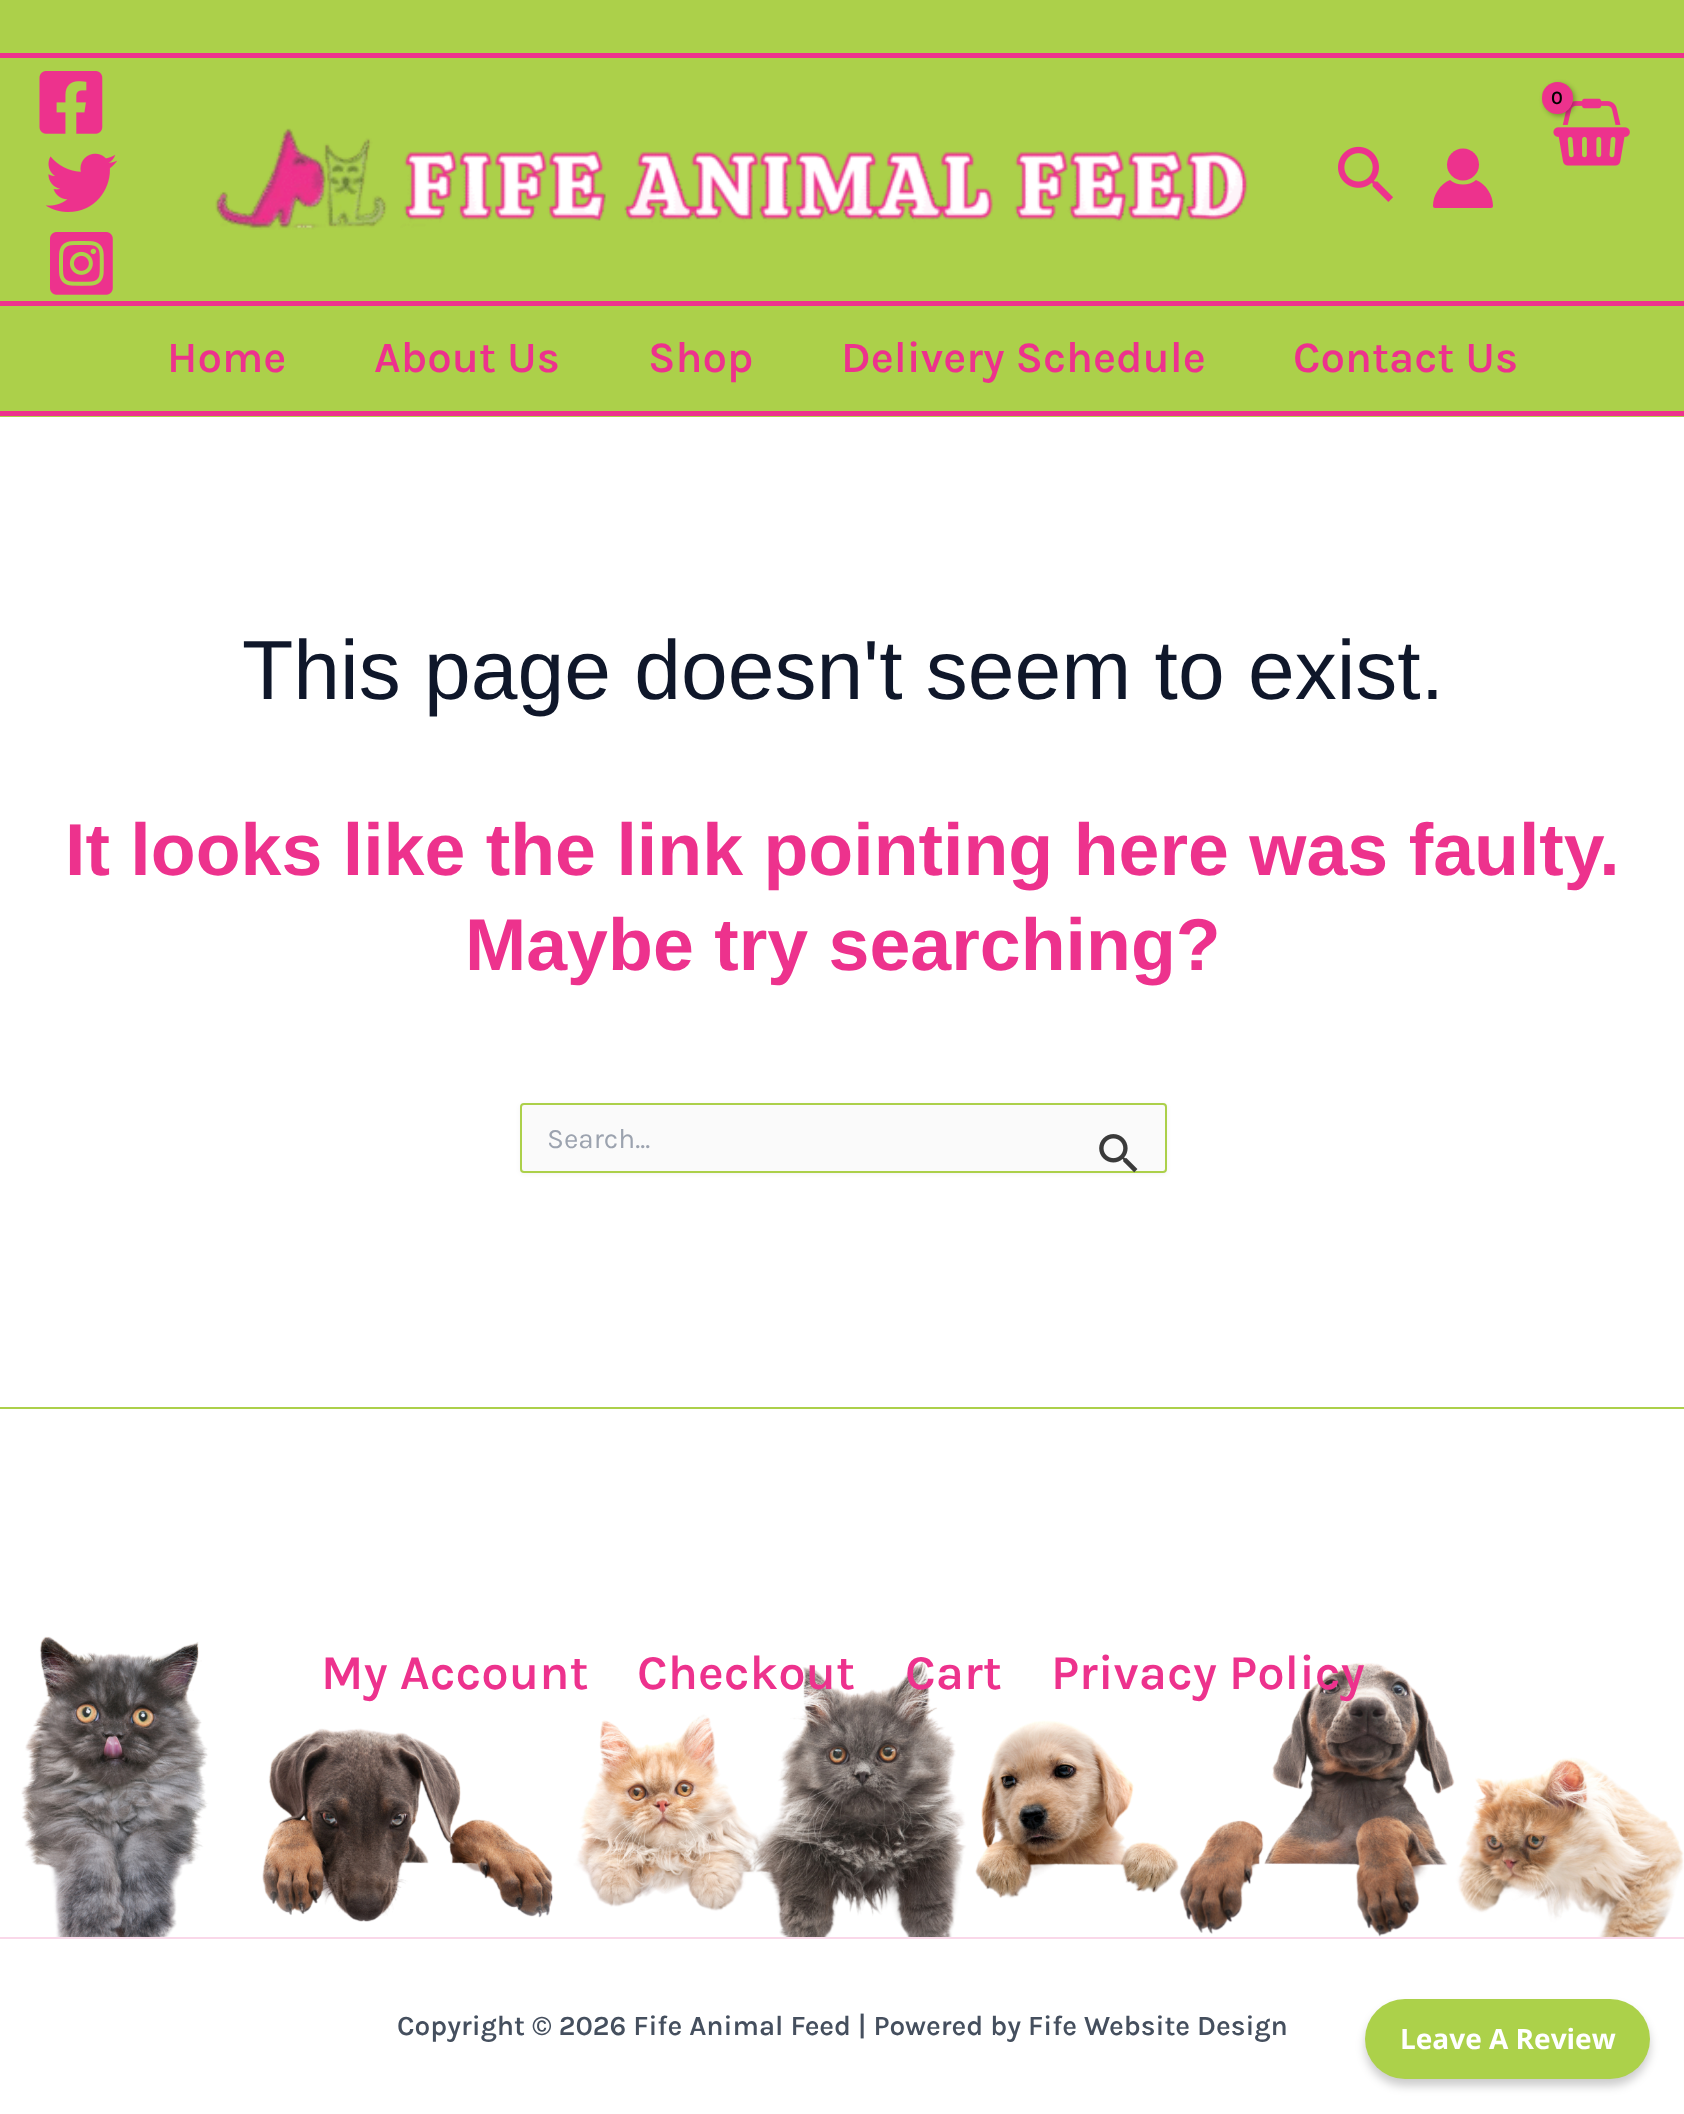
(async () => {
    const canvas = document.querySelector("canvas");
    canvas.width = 1684;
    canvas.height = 2114;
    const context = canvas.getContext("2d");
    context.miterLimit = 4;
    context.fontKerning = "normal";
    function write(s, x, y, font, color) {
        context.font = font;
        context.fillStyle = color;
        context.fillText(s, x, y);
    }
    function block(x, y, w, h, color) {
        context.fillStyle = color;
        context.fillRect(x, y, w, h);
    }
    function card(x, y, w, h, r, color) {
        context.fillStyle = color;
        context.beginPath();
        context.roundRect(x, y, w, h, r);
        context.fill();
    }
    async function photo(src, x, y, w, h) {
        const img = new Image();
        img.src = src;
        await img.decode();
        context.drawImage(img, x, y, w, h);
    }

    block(0, 0, 1684, 2114, "rgb(255, 255, 255)");
    block(0, 0, 1684, 53, "rgb(172, 208, 74)");
    block(0, 53, 1684, 5, "rgb(237, 50, 141)");
    block(0, 58, 1684, 243, "rgb(172, 208, 74)");
    block(0, 301, 1684, 5, "rgb(237, 50, 141)");
    await photo("media/1.png", 39, 71, 64, 63);
    await photo("media/2.png", 46, 153, 71, 59);
    await photo("media/3.png", 50, 232, 63, 63);
    await photo("media/4.png", 1553, 98, 77, 68);
    context.fillStyle = "rgba(0, 0, 0, 0.3)";
    context.filter = "blur(2.5px)";
    context.beginPath();
    context.roundRect(1544, 84, 31, 32, 15.5);
    context.fill();
    context.filter = "none";
    card(1542, 82, 31, 32, 15.5, "rgb(237, 50, 141)");
    context.letterSpacing = "-1px";
    write("0", 1551, 104, "600 19px Karla", "rgb(0, 0, 0)");
    await photo("media/5.png", 1338, 146, 55, 56);
    context.fillStyle = "rgb(237, 50, 141)";
    context.beginPath();
    context.moveTo(1476, 180);
    context.bezierCurveTo(1469, 186, 1457, 186, 1450, 180);
    context.bezierCurveTo(1440, 184, 1433, 195, 1433, 206);
    context.bezierCurveTo(1433, 207, 1434, 208, 1435, 208);
    context.lineTo(1491, 208);
    context.bezierCurveTo(1492, 208, 1493, 207, 1493, 206);
    context.bezierCurveTo(1493, 195, 1486, 184, 1476, 180);
    context.closePath();
    context.fill();
    context.beginPath();
    context.arc(1463, 164.5, 16, 0, Math.PI * 2);
    context.fill();
    await photo("media/6.png", 215, 128, 1033, 102);
    block(0, 306, 1684, 111, "rgb(172, 208, 74)");
    block(0, 411, 1684, 5, "rgb(237, 50, 141)");
    context.letterSpacing = "0px";
    write("Home", 167, 372, "600 43.75px Karla", "rgb(237, 50, 141)");
    write("About Us", 374, 372, "600 43.75px Karla", "rgb(237, 50, 141)");
    write("Shop", 648, 372, "600 43.75px Karla", "rgb(237, 50, 141)");
    write("Delivery Schedule", 841, 372, "600 43.75px Karla", "rgb(237, 50, 141)");
    write("Contact Us", 1293, 372, "600 43.75px Karla", "rgb(237, 50, 141)");
    write("This page doesn't seem to exist.", 242, 699, "84px Liberation Sans", "rgb(15, 23, 42)");
    write("It looks like the link pointing here was faulty.", 65, 875, "bold 73.5px Liberation Sans", "rgb(237, 50, 141)");
    write("Maybe try searching?", 465, 970, "bold 73.5px Liberation Sans", "rgb(237, 50, 141)");
    context.fillStyle = "rgba(0, 0, 0, 0.05)";
    context.filter = "blur(2px)";
    context.beginPath();
    context.roundRect(520, 1104, 647, 70, 4);
    context.fill();
    context.filter = "none";
    context.fillStyle = "rgb(250, 250, 250)";
    context.beginPath();
    context.roundRect(521, 1104, 645, 68, 3);
    context.fill();
    context.strokeStyle = "rgb(172, 208, 74)";
    context.lineWidth = 2;
    context.stroke();
    write("Search...", 547, 1148, "28px Karla", "rgb(156, 163, 175)");
    await photo("media/7.png", 1099, 1134, 39, 39);
    await photo("media/8.png", 21, 1636, 1663, 301);
    block(0, 1407, 1684, 2, "rgb(172, 208, 74)");
    write("My Account", 321, 1689, "600 49px Karla", "rgb(237, 50, 141)");
    write("Checkout", 637, 1689, "600 49px Karla", "rgb(237, 50, 141)");
    write("Cart", 905, 1689, "600 49px Karla", "rgb(237, 50, 141)");
    write("Privacy Policy", 1051, 1689, "600 49px Karla", "rgb(237, 50, 141)");
    block(0, 1937, 1684, 2, "rgb(250, 216, 233)");
    write("Copyright © 2026 Fife Animal Feed | Powered by Fife Website Design", 397, 2035, "600 28px Karla", "rgb(69, 79, 94)");
    context.fillStyle = "rgba(0, 0, 0, 0.2)";
    context.filter = "blur(5px)";
    context.beginPath();
    context.roundRect(1365, 2006, 285, 80, 40);
    context.fill();
    context.filter = "none";
    card(1365, 1999, 285, 80, 40, "rgb(172, 209, 74)");
    write("Leave A Review", 1400, 2049, "bold 28px Open Sans", "rgb(255, 255, 255)");
})();
